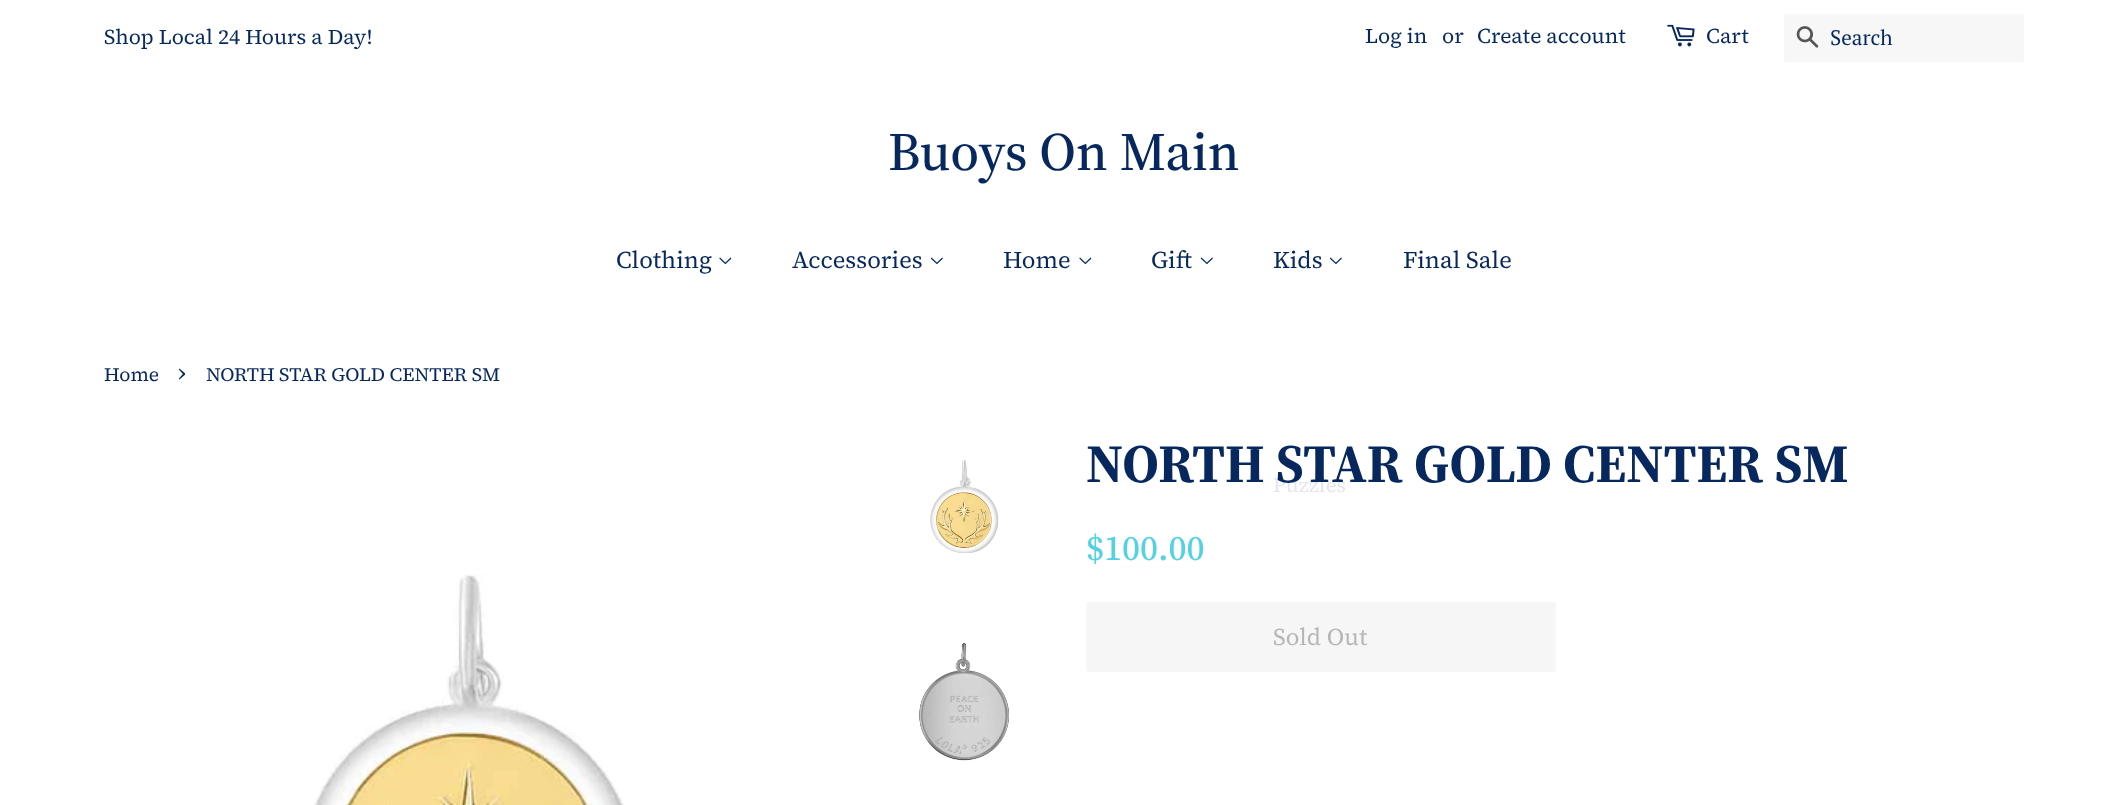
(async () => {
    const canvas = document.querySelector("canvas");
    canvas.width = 2126;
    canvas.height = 805;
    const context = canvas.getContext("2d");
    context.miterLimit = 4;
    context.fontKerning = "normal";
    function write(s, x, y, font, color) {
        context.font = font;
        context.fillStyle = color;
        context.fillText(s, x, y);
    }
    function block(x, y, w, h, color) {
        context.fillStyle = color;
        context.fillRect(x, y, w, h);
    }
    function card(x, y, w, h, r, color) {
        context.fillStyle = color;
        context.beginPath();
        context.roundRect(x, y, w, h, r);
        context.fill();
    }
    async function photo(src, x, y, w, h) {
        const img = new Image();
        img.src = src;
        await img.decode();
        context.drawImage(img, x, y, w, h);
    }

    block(0, 0, 2126, 805, "rgb(255, 255, 255)");
    write("Shop Local 24 Hours a Day!", 104, 44, "21px 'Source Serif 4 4'", "rgb(7, 40, 94)");
    write("Log in", 1365, 43, "21px 'Source Serif 4 4'", "rgb(7, 40, 94)");
    write("or", 1442, 43, "21px 'Source Serif 4 4'", "rgb(7, 40, 94)");
    write("Create account", 1477, 43, "21px 'Source Serif 4 4'", "rgb(7, 40, 94)");
    await photo("media/1.png", 1667, 24, 28, 23);
    write("Cart", 1706, 43, "21px 'Source Serif 4 4'", "rgb(7, 40, 94)");
    card(1784, 14, 240, 48, 3, "rgb(247, 247, 247)");
    await photo("media/2.png", 1796, 26, 23, 22);
    write("Search", 1830, 45, "21px PT Serif", "rgb(7, 40, 94)");
    write("Buoys On Main", 888, 170, "500 54px 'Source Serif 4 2'", "rgb(7, 40, 94)");
    write("Clothing", 616, 268, "24px 'Source Serif 4'", "rgb(7, 40, 94)");
    await photo("media/3.png", 719, 257, 13, 8);
    write("Accessories", 792, 268, "24px 'Source Serif 4'", "rgb(7, 40, 94)");
    await photo("media/4.png", 930, 257, 13, 8);
    write("Home", 1003, 268, "24px 'Source Serif 4'", "rgb(7, 40, 94)");
    await photo("media/3.png", 1079, 257, 13, 8);
    write("Gift", 1151, 268, "24px 'Source Serif 4'", "rgb(7, 40, 94)");
    await photo("media/4.png", 1200, 257, 13, 8);
    write("Kids", 1273, 268, "24px 'Source Serif 4'", "rgb(7, 40, 94)");
    await photo("media/4.png", 1329, 257, 13, 8);
    write("Puzzles", 1273, 492, "20.5px 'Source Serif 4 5'", "rgb(227, 231, 237)");
    write("Final Sale", 1403, 268, "24px 'Source Serif 4'", "rgb(7, 40, 94)");
    write("Home", 104, 381, "19.1px 'Source Serif 4 2'", "rgb(7, 40, 94)");
    write("›", 178, 381, "27px 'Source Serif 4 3'", "rgb(7, 40, 94)");
    write("NORTH STAR GOLD CENTER SM", 206, 381, "19.1px 'Source Serif 4 2'", "rgb(7, 40, 94)");
    await photo("media/5.png", 314, 574, 310, 231);
    await photo("media/6.png", 930, 460, 69, 93);
    await photo("media/7.png", 919, 642, 90, 119);
    write("NORTH STAR GOLD CENTER SM", 1086, 482, "bold 54px 'Source Serif 4'", "rgb(7, 40, 94)");
    write("$100.00", 1086, 560, "500 35.5px 'Source Serif 4'", "rgb(83, 210, 227)");
    card(1086, 602, 470, 70, 3, "rgb(246, 246, 246)");
    write("Sold Out", 1273, 645, "24px 'Source Serif 4'", "rgb(182, 182, 182)");
})();
